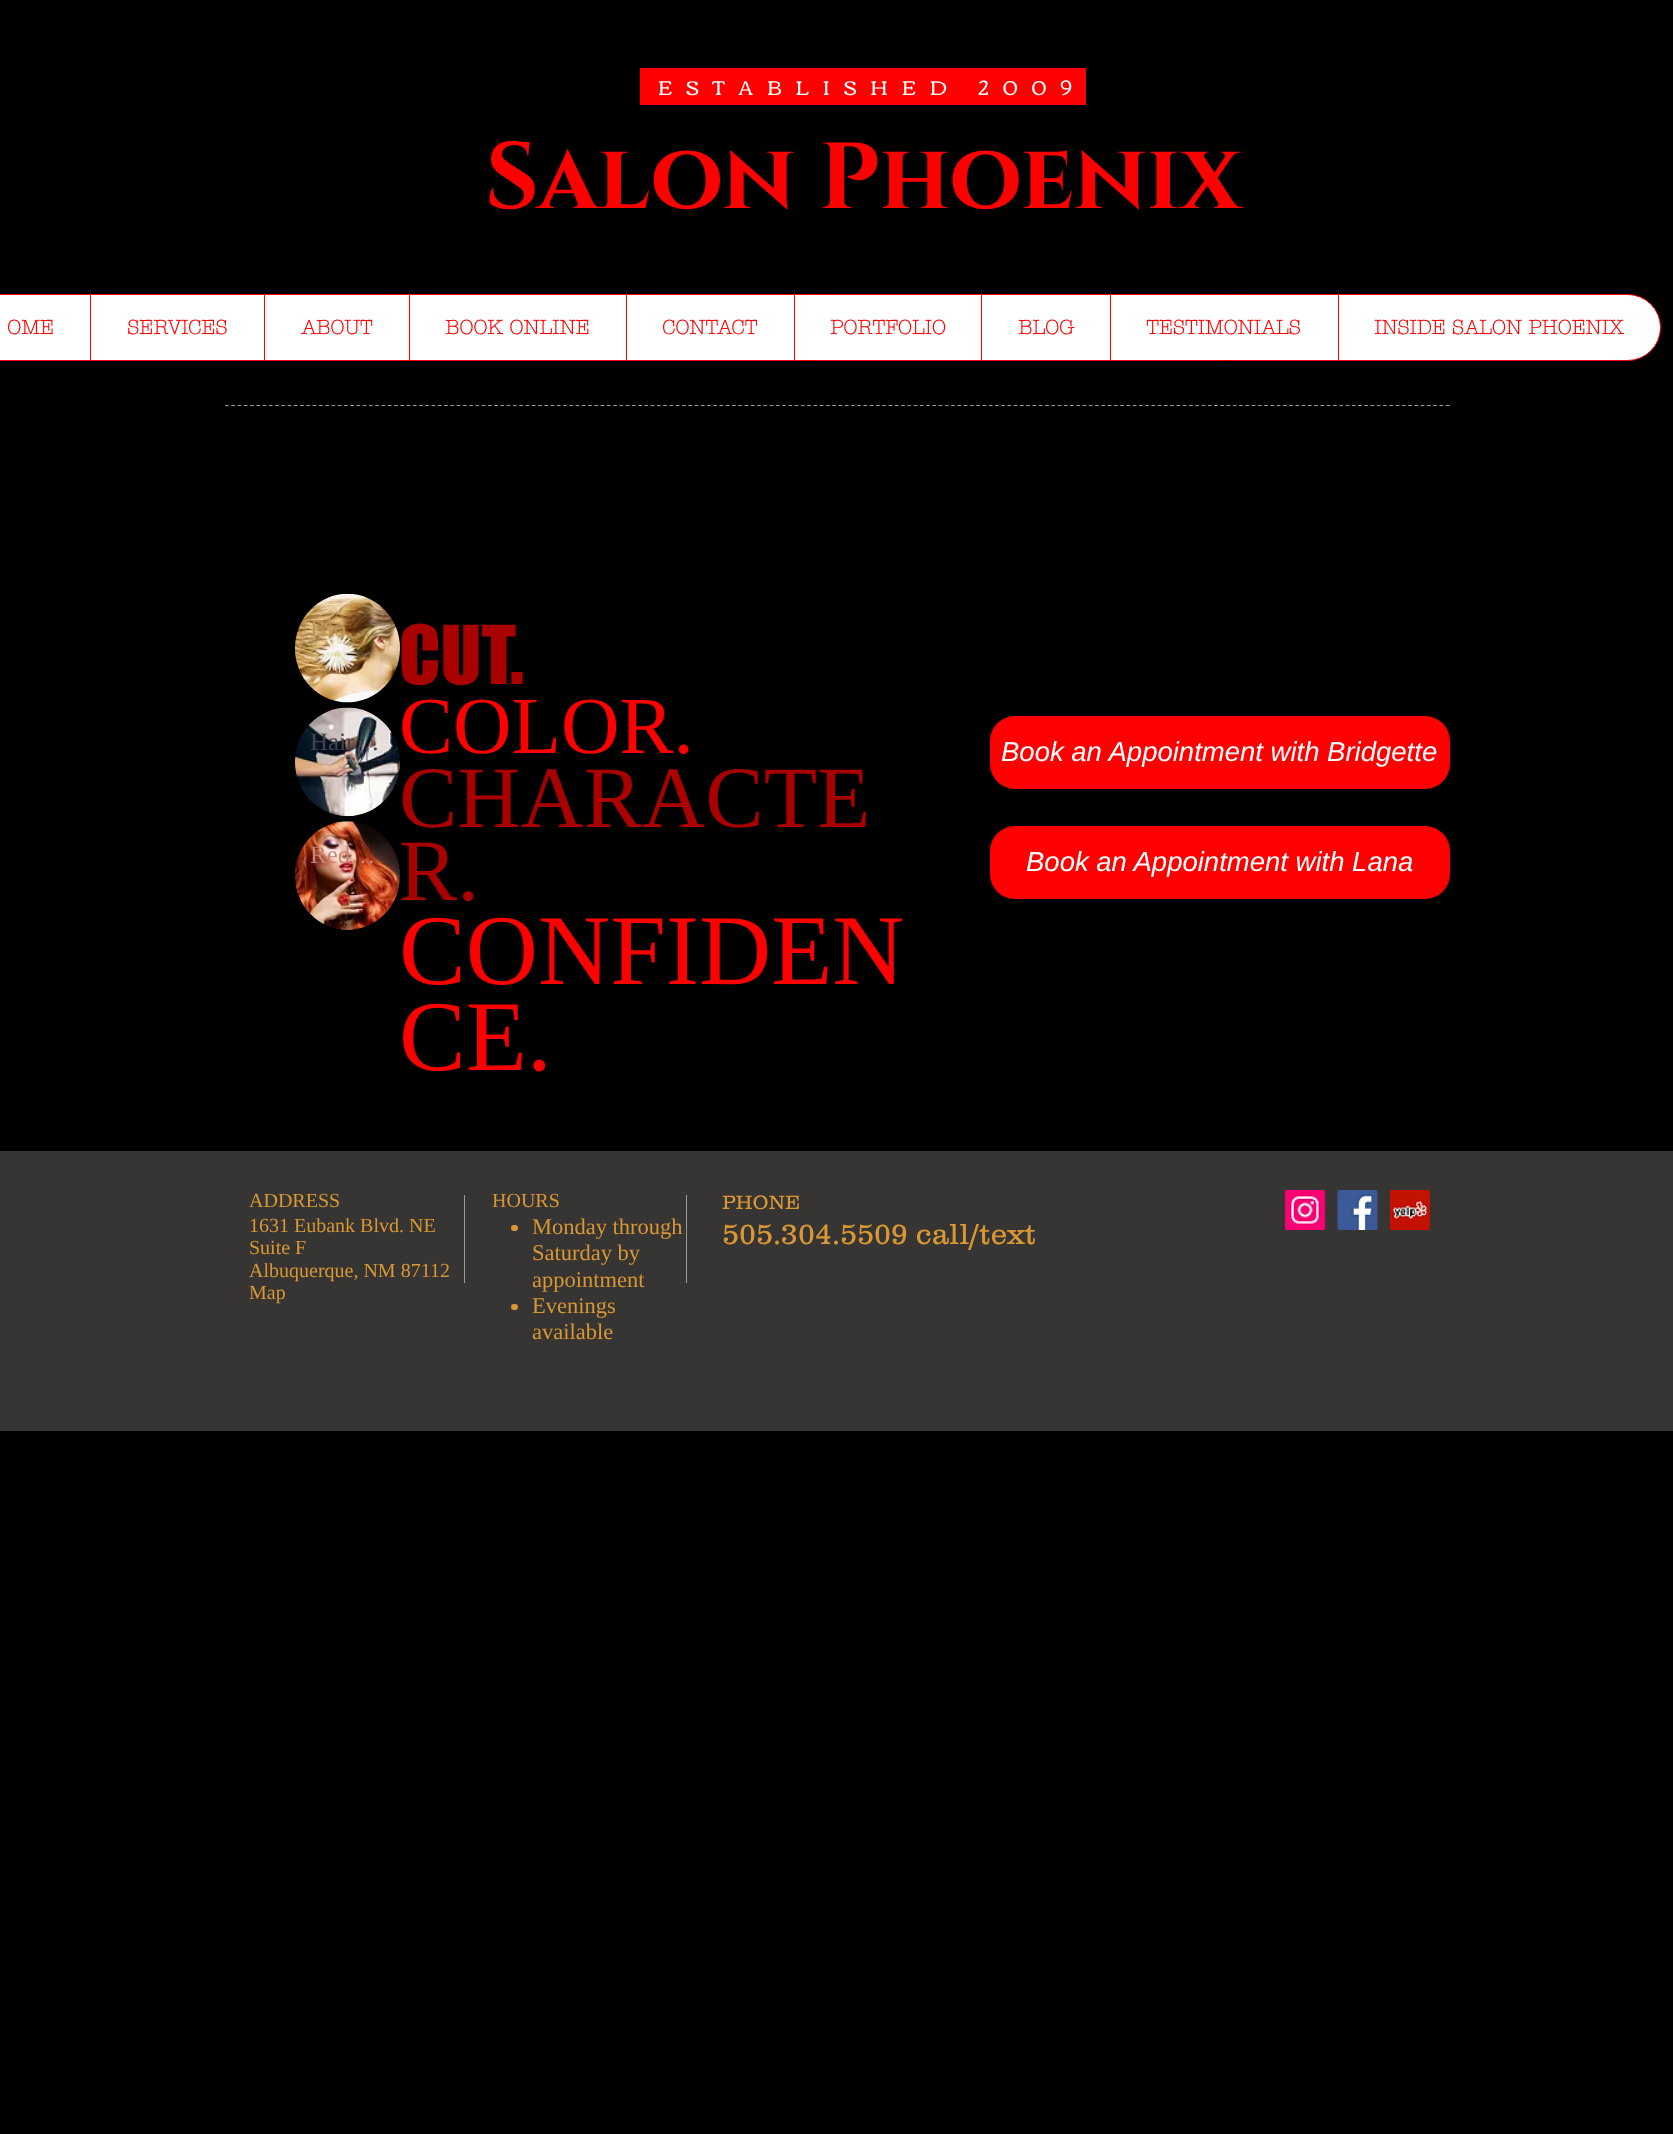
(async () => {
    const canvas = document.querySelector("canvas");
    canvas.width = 1673;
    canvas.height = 2134;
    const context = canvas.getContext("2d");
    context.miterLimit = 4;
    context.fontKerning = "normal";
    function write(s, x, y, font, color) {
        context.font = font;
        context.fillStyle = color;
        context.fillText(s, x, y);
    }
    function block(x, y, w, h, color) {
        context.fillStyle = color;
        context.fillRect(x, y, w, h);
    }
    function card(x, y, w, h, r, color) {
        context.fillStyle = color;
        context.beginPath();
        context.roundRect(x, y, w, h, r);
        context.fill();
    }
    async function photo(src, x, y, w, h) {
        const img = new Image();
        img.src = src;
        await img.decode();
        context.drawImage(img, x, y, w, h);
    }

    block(0, 0, 1673, 2134, "rgb(0, 0, 0)");
    block(640, 68, 446, 37, "rgb(255, 0, 0)");
    context.letterSpacing = "14px";
    write("ESTABLISHED 2009", 658, 95, "20px Corben", "rgb(255, 255, 255)");
    context.letterSpacing = "0px";
    write("Salon Phoenix", 485, 208, "bold 93.75px Cinzel", "rgb(255, 0, 0)");
    context.fillStyle = "rgb(255, 255, 255)";
    context.beginPath();
    context.roundRect(-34.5, 294.5, 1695, 66, 33);
    context.fill();
    context.strokeStyle = "rgb(255, 0, 0)";
    context.stroke();
    write("OME", 7, 334, "bold 20px 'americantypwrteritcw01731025'", "rgb(255, 0, 0)");
    block(90, 295, 1, 65, "rgb(255, 0, 0)");
    write("SERVICES", 127, 334, "bold 20px 'americantypwrteritcw01731025'", "rgb(255, 0, 0)");
    block(264, 295, 1, 65, "rgb(255, 0, 0)");
    write("ABOUT", 301, 334, "bold 20px 'americantypwrteritcw01731025'", "rgb(255, 0, 0)");
    block(409, 295, 1, 65, "rgb(255, 0, 0)");
    write("BOOK ONLINE", 445, 334, "bold 20px 'americantypwrteritcw01731025'", "rgb(255, 0, 0)");
    block(626, 295, 1, 65, "rgb(255, 0, 0)");
    write("CONTACT", 662, 334, "bold 20px 'americantypwrteritcw01731025'", "rgb(255, 0, 0)");
    block(794, 295, 1, 65, "rgb(255, 0, 0)");
    write("PORTFOLIO", 830, 334, "bold 20px 'americantypwrteritcw01731025'", "rgb(255, 0, 0)");
    block(981, 295, 1, 65, "rgb(255, 0, 0)");
    write("BLOG", 1018, 334, "bold 20px 'americantypwrteritcw01731025'", "rgb(255, 0, 0)");
    block(1110, 295, 1, 65, "rgb(255, 0, 0)");
    write("TESTIMONIALS", 1146, 334, "bold 20px 'americantypwrteritcw01731025'", "rgb(255, 0, 0)");
    block(1338, 295, 1, 65, "rgb(255, 0, 0)");
    write("INSIDE SALON PHOENIX", 1374, 334, "bold 20px 'americantypwrteritcw01731025'", "rgb(255, 0, 0)");
    context.beginPath();
    context.moveTo(225, 405.5);
    context.lineTo(1450, 405.5);
    context.strokeStyle = "rgb(153, 153, 153)";
    context.lineWidth = 1.2;
    context.setLineDash([3.75, 2.51]);
    context.stroke();
    await photo("media/1.png", 295, 593, 105, 110);
    write("Blo…", 310, 636, "25px Liberation Serif", "rgb(190, 150, 92)");
    await photo("media/2.png", 295, 707, 105, 110);
    write("Hair…", 310, 750, "25px Liberation Serif", "rgb(66, 67, 74)");
    await photo("media/3.png", 295, 821, 105, 109);
    write("Red…", 310, 863, "25px Liberation Serif", "rgb(200, 134, 116)");
    write("CUT.", 399, 684, "75px 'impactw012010'", "rgb(169, 0, 0)");
    write("COLOR.", 399, 753, "81px Liberation Serif", "rgb(255, 0, 0)");
    write("CHARACTE", 399, 827, "87.5px Liberation Serif", "rgb(169, 0, 0)");
    write("R.", 399, 900, "87.5px Liberation Serif", "rgb(169, 0, 0)");
    write("CONFIDEN", 399, 984, "100px Liberation Serif", "rgb(255, 0, 0)");
    write("CE.", 399, 1070, "100px Liberation Serif", "rgb(255, 0, 0)");
    card(990, 716, 460, 73, 25, "rgb(255, 0, 0)");
    write("Book an Appointment with Bridgette", 1001, 761, "italic 27.5px Liberation Sans", "rgb(255, 255, 255)");
    card(990, 826, 460, 73, 25, "rgb(255, 0, 0)");
    write("Book an Appointment with Lana", 1026, 871, "italic 27.5px Liberation Sans", "rgb(255, 255, 255)");
    block(0, 1151, 1673, 280, "rgb(55, 53, 51)");
    write("ADDRESS", 249, 1207, "20px Liberation Serif", "rgb(217, 151, 52)");
    write("1631 Eubank Blvd. NE", 249, 1232, "20px Liberation Serif", "rgb(217, 151, 52)");
    write("Suite F", 249, 1254, "20px Liberation Serif", "rgb(217, 151, 52)");
    write("Albuquerque, NM 87112", 249, 1277, "20px Liberation Serif", "rgb(217, 151, 52)");
    write("Map", 249, 1299, "20px Liberation Serif", "rgb(217, 151, 52)");
    block(464, 1195, 1, 88, "rgb(153, 153, 153)");
    write("HOURS", 492, 1207, "20px Liberation Serif", "rgb(217, 151, 52)");
    card(511, 1225, 7, 6, 3, "rgb(217, 151, 52)");
    write("Monday through", 532, 1234, "22.5px Liberation Serif", "rgb(217, 151, 52)");
    write("Saturday by", 532, 1260, "22.5px Liberation Serif", "rgb(217, 151, 52)");
    write("appointment", 532, 1287, "22.5px Liberation Serif", "rgb(217, 151, 52)");
    card(511, 1304, 7, 6, 3, "rgb(217, 151, 52)");
    write("Evenings", 532, 1313, "22.5px Liberation Serif", "rgb(217, 151, 52)");
    write("available", 532, 1339, "22.5px Liberation Serif", "rgb(217, 151, 52)");
    block(686, 1195, 1, 88, "rgb(153, 153, 153)");
    write("PHONE", 722, 1209, "300 20px 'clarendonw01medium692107'", "rgb(217, 151, 52)");
    write("505.304.5509 call/text", 722, 1244, "300 30px 'clarendonw01medium692107'", "rgb(217, 151, 52)");
    await photo("media/4.png", 1285, 1190, 40, 40);
    await photo("media/5.png", 1337, 1190, 41, 40);
    await photo("media/6.png", 1390, 1190, 40, 40);
})();
